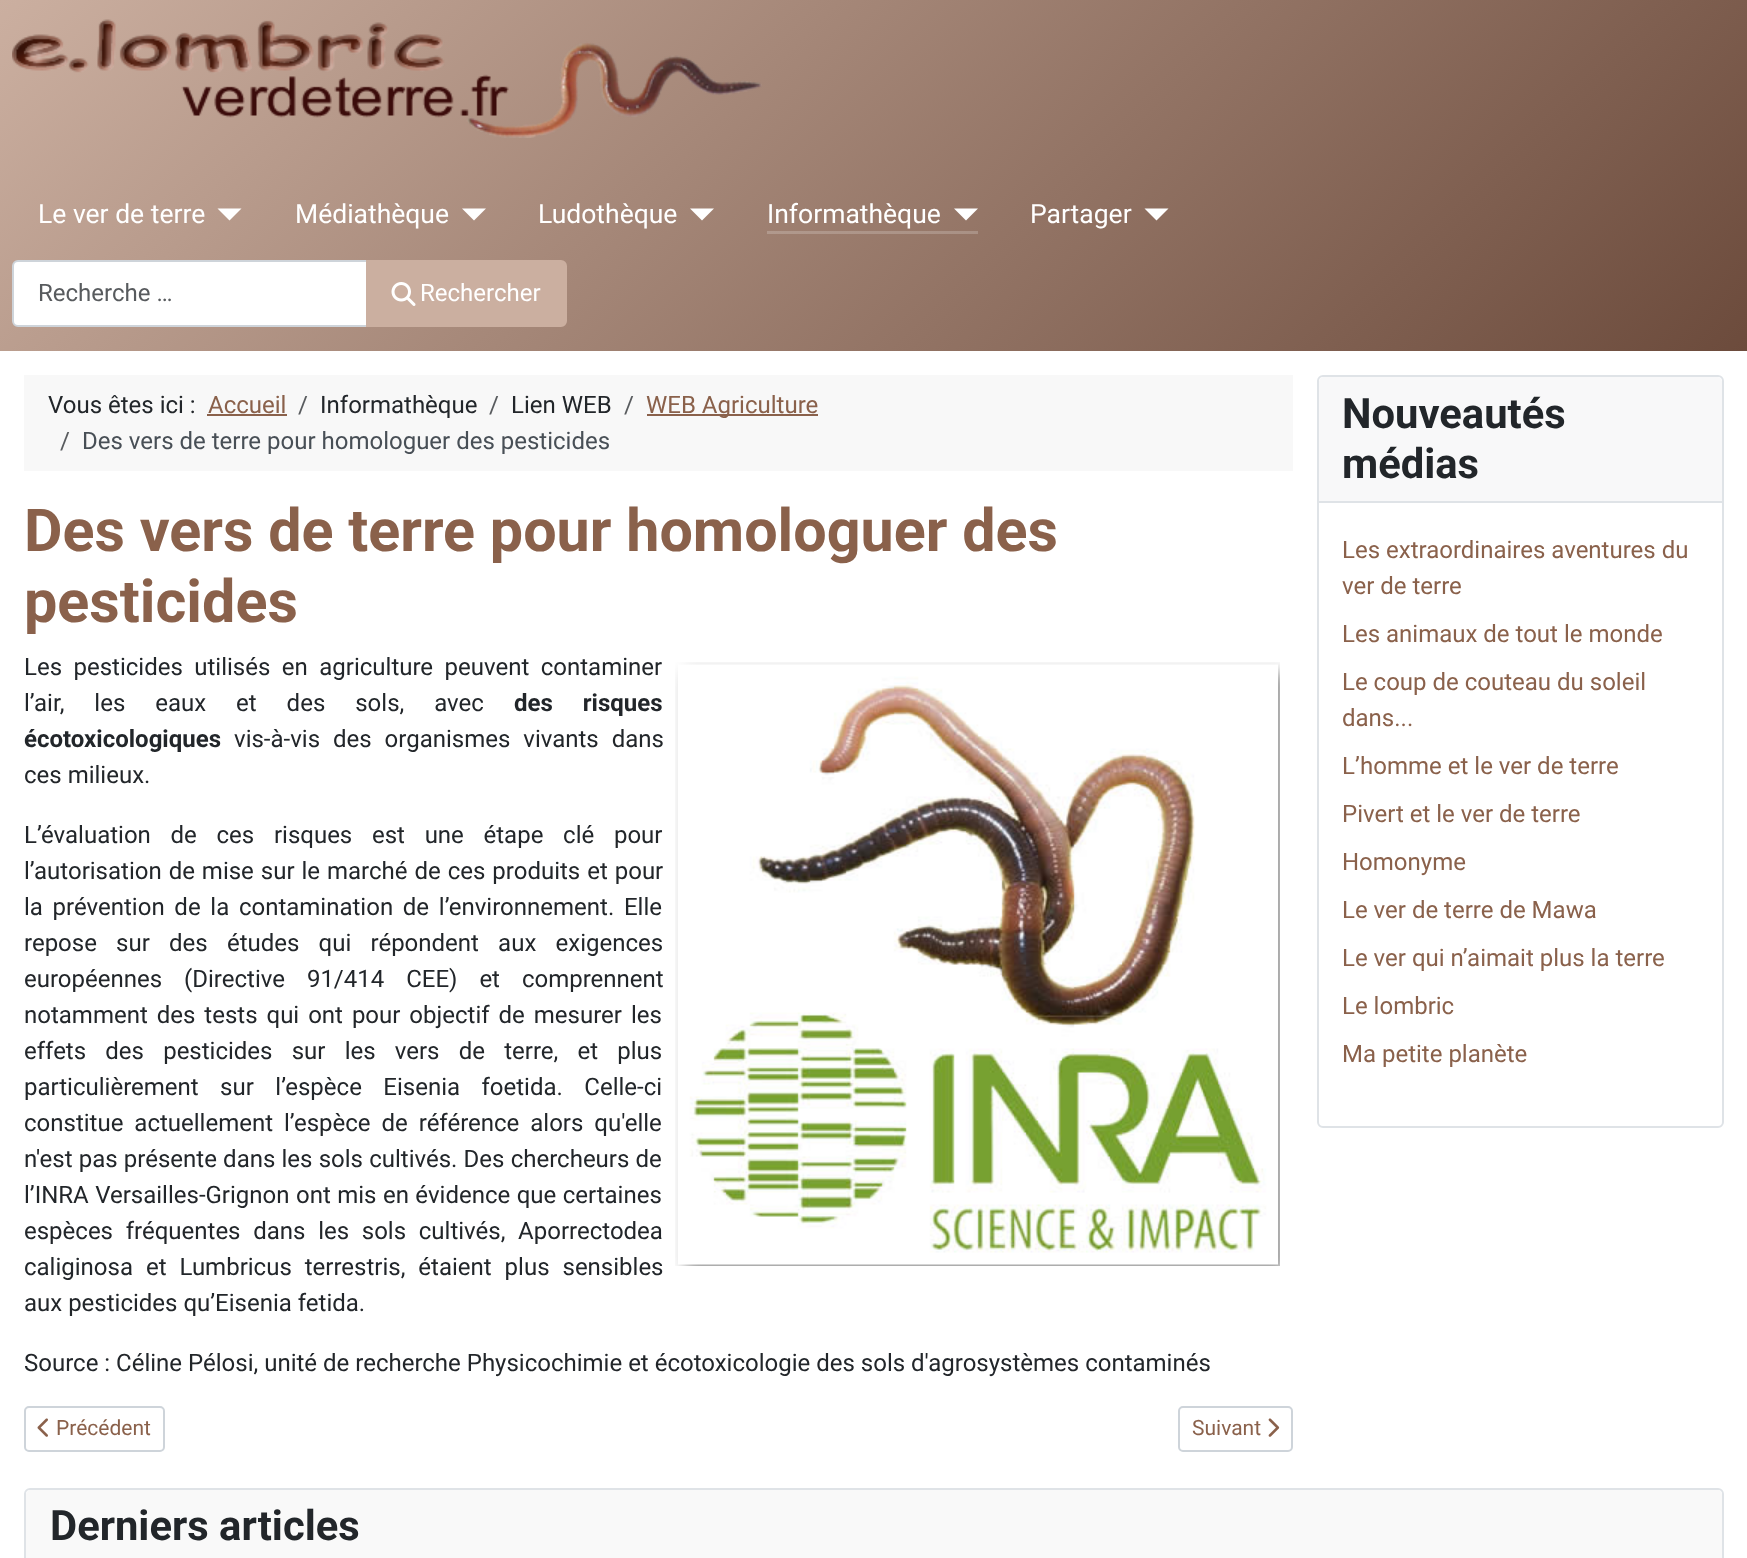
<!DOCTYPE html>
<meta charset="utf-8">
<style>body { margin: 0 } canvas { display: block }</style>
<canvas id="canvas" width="1747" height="1558"></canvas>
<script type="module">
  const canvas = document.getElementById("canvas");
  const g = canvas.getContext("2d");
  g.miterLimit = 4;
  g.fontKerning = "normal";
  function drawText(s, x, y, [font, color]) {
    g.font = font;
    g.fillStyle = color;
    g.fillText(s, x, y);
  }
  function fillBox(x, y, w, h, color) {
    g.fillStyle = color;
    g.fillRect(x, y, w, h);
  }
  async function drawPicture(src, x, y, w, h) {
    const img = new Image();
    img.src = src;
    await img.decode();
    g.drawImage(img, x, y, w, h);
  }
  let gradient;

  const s1 = ["26.5px Roboto", "#FFFFFF"];
  const s2 = ["24px Roboto", "#585B5E"];
  const s3 = ["24px Roboto", "#FFFFFF"];
  const s4 = ["24px Roboto", "#22262A"];
  const s5 = ["24px Roboto", "#8A614B"];
  const s6 = ["24px Roboto", "#484F56"];
  const s7 = ["bold 59.25px Roboto", "#8A614B"];
  const s8 = ["bold 24px Roboto", "#22262A"];
  const s9 = ["21px Roboto", "#8A614B"];
  const s10 = ["bold 41.75px Roboto", "#22262A"];

  fillBox(0, 0, 1747, 1558, "#FFFFFF");
  gradient = g.createLinearGradient(349, -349, 1398, 700);
  gradient.addColorStop(0, "#CBAFA0");
  gradient.addColorStop(1, "#6C4B3C");
  g.fillStyle = gradient;
  g.fillRect(0, 0, 1747, 351);
  gradient = g.createLinearGradient(349, -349, 1398, 700);
  gradient.addColorStop(0, "#D5BFB3");
  gradient.addColorStop(1, "#896F63");
  g.fillStyle = gradient;
  g.fillRect(767, 231, 211, 3);
  await drawPicture("pic1.png", 12, 19, 750, 119);
  drawText("Le ver de terre", 38, 223, s1);
  g.beginPath();
  g.moveTo(217.5, 208.5);
  g.lineTo(241.5, 208.5);
  g.lineTo(229.5, 220.5);
  g.closePath();
  g.fill();
  drawText("Médiathèque", 295, 223, s1);
  g.beginPath();
  g.moveTo(462, 208.5);
  g.lineTo(486, 208.5);
  g.lineTo(474, 220.5);
  g.closePath();
  g.fill();
  drawText("Ludothèque", 538, 223, s1);
  g.beginPath();
  g.moveTo(690, 208.5);
  g.lineTo(714, 208.5);
  g.lineTo(702, 220.5);
  g.closePath();
  g.fill();
  drawText("Informathèque", 767, 223, s1);
  g.beginPath();
  g.moveTo(954, 208.5);
  g.lineTo(978, 208.5);
  g.lineTo(966, 220.5);
  g.closePath();
  g.fill();
  drawText("Partager", 1030, 223, s1);
  g.beginPath();
  g.moveTo(1144.5, 208.5);
  g.lineTo(1168.5, 208.5);
  g.lineTo(1156.5, 220.5);
  g.closePath();
  g.fill();
  g.beginPath();
  g.roundRect(13, 261, 354, 65, [5, 0, 0, 5]);
  g.fill();
  g.strokeStyle = "#CED4DA";
  g.lineWidth = 2;
  g.stroke();
  drawText("Recherche …", 38, 301, s2);
  g.fillStyle = "#CBAFA0";
  g.beginPath();
  g.roundRect(367, 261, 199, 65, [0, 5, 5, 0]);
  g.fill();
  g.strokeStyle = "#CBAFA0";
  g.stroke();
  await drawPicture("pic2.png", 391, 282, 25, 24);
  drawText("Rechercher", 420, 301, s3);
  fillBox(24, 375, 1269, 96, "#F8F8F8");
  drawText("Vous êtes ici :", 48, 413, s4);
  drawText("Accueil", 208, 413, s5);
  fillBox(207, 414, 80, 2, "#8A614B");
  drawText("/", 298, 413, s2);
  drawText("Informathèque", 320, 413, s4);
  drawText("/", 489, 413, s2);
  drawText("Lien WEB", 511, 413, s4);
  drawText("/", 624, 413, s2);
  fillBox(647, 414, 171, 2, "#8A614B");
  drawText("WEB Agriculture", 646, 413, s5);
  drawText("/", 60, 449, s2);
  drawText("Des vers de terre pour homologuer des pesticides", 82, 449, s6);
  drawText("Des vers de terre pour homologuer des", 24, 551, s7);
  drawText("pesticides", 24, 622, s7);
  g.wordSpacing = "5.5px";
  drawText("Les pesticides utilisés en agriculture peuvent contaminer", 24, 675, s4);
  g.wordSpacing = "24px";
  drawText("l’air, les eaux et des sols, avec", 24, 711, s4);
  drawText("des risques", 514, 711, s8);
  g.wordSpacing = "0px";
  drawText("écotoxicologiques", 24, 747, s8);
  g.wordSpacing = "7px";
  drawText("vis-à-vis des organismes vivants dans", 234, 747, s4);
  g.wordSpacing = "0px";
  drawText("ces milieux.", 24, 783, s4);
  g.wordSpacing = "13.75px";
  drawText("L’évaluation de ces risques est une étape clé pour", 24, 843, s4);
  g.wordSpacing = "1px";
  drawText("l’autorisation de mise sur le marché de ces produits et pour", 24, 879, s4);
  g.wordSpacing = "3.75px";
  drawText("la prévention de la contamination de l’environnement. Elle", 24, 915, s4);
  g.wordSpacing = "13.25px";
  drawText("repose sur des études qui répondent aux exigences", 24, 951, s4);
  g.wordSpacing = "16px";
  drawText("européennes (Directive 91/414 CEE) et comprennent", 24, 987, s4);
  g.wordSpacing = "3px";
  drawText("notamment des tests qui ont pour objectif de mesurer les", 24, 1023, s4);
  g.wordSpacing = "13.25px";
  drawText("effets des pesticides sur les vers de terre, et plus", 24, 1059, s4);
  g.wordSpacing = "15.5px";
  drawText("particulièrement sur l’espèce Eisenia foetida. Celle-ci", 24, 1095, s4);
  g.wordSpacing = "5px";
  drawText("constitue actuellement l’espèce de référence alors qu'elle", 24, 1131, s4);
  g.wordSpacing = "0.25px";
  drawText("n'est pas présente dans les sols cultivés. Des chercheurs de", 24, 1167, s4);
  g.wordSpacing = "0.5px";
  drawText("l’INRA Versailles-Grignon ont mis en évidence que certaines", 24, 1203, s4);
  g.wordSpacing = "6.75px";
  drawText("espèces fréquentes dans les sols cultivés, Aporrectodea", 24, 1239, s4);
  g.wordSpacing = "7px";
  drawText("caliginosa et Lumbricus terrestris, étaient plus sensibles", 24, 1275, s4);
  g.wordSpacing = "0px";
  drawText("aux pesticides qu’Eisenia fetida.", 24, 1311, s4);
  drawText("Source : Céline Pélosi, unité de recherche Physicochimie et écotoxicologie des sols d'agrosystèmes contaminés", 24, 1371, s4);
  await drawPicture("pic3.png", 675, 662, 605, 604);
  g.beginPath();
  g.roundRect(25, 1407, 139, 44, 4);
  g.strokeStyle = "#CED4DA";
  g.stroke();
  await drawPicture("pic4.png", 37, 1418, 11, 19);
  drawText("Précédent", 56, 1435, s9);
  g.beginPath();
  g.roundRect(1179, 1407, 113, 44, 4);
  g.stroke();
  drawText("Suivant", 1192, 1435, s9);
  await drawPicture("pic5.png", 1268, 1418, 12, 19);
  g.beginPath();
  g.roundRect(1318, 376, 405, 751, 5);
  g.strokeStyle = "#DFE3E7";
  g.stroke();
  g.fillStyle = "#F8F8F9";
  g.beginPath();
  g.roundRect(1319, 377, 403, 126, [5, 5, 0, 0]);
  g.fill();
  fillBox(1319, 501, 403, 2, "#DFE3E7");
  drawText("Nouveautés", 1342, 428, s10);
  drawText("médias", 1342, 478, s10);
  drawText("Les extraordinaires aventures du", 1342, 558, s5);
  drawText("ver de terre", 1342, 594, s5);
  drawText("Les animaux de tout le monde", 1342, 642, s5);
  drawText("Le coup de couteau du soleil", 1342, 690, s5);
  drawText("dans...", 1342, 726, s5);
  drawText("L’homme et le ver de terre", 1342, 774, s5);
  drawText("Pivert et le ver de terre", 1342, 822, s5);
  drawText("Homonyme", 1342, 870, s5);
  drawText("Le ver de terre de Mawa", 1342, 918, s5);
  drawText("Le ver qui n’aimait plus la terre", 1342, 966, s5);
  drawText("Le lombric", 1342, 1014, s5);
  drawText("Ma petite planète", 1342, 1062, s5);
  g.beginPath();
  g.roundRect(25, 1489, 1698, 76, 5);
  g.stroke();
  g.fillStyle = "#F9F9F9";
  g.beginPath();
  g.moveTo(31, 1490);
  g.lineTo(1717, 1490);
  g.bezierCurveTo(1720, 1490, 1722, 1492, 1722, 1495);
  g.lineTo(1722, 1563);
  g.lineTo(26, 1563);
  g.lineTo(26, 1495);
  g.bezierCurveTo(26, 1492, 28, 1490, 31, 1490);
  g.closePath();
  g.fill();
  drawText("Derniers articles", 50, 1540, s10);
</script>
